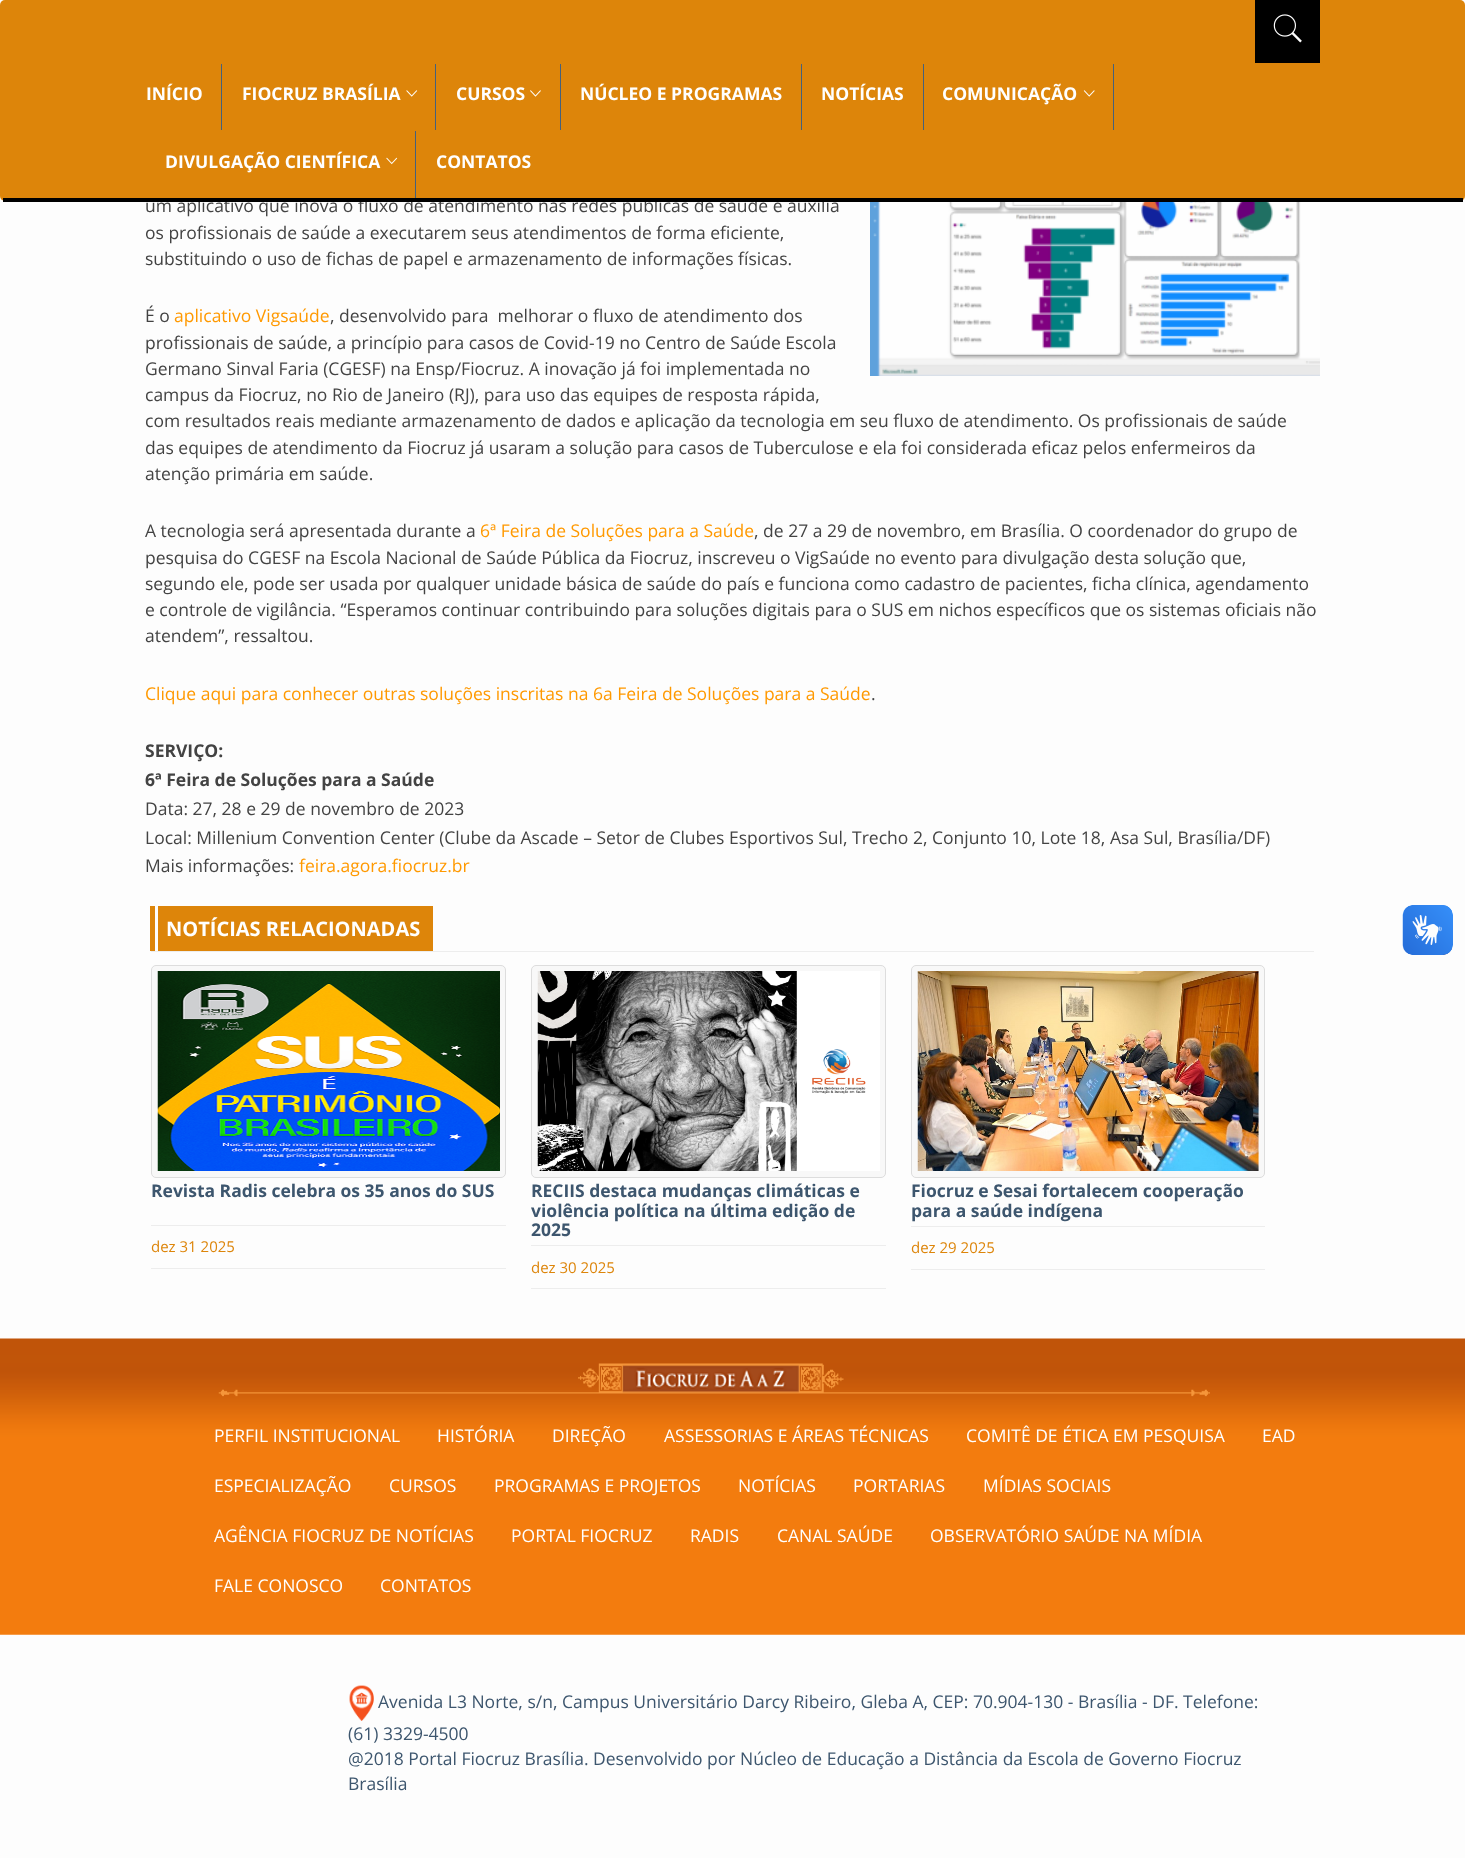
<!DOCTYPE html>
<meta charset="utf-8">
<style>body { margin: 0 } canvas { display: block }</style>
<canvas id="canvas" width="1465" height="1858"></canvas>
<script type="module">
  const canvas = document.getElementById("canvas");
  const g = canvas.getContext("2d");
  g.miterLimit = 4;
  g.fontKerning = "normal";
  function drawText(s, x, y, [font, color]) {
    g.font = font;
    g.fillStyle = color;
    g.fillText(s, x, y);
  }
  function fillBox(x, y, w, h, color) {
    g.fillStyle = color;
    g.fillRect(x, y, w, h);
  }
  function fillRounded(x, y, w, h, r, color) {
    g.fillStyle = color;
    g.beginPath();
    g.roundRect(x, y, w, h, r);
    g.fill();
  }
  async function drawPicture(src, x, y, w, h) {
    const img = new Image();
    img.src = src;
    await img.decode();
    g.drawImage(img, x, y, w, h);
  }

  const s1 = ["17.5px Open Sans", "#434343"];
  const s2 = ["bold 17.5px Open Sans", "#FFFFFF"];
  const s3 = ["17.5px Open Sans", "#FF9900"];
  const s4 = ["bold 17.5px Open Sans", "#434343"];
  const s5 = ["bold 20px Open Sans", "#FFFFFF"];
  const s6 = ["bold 17.5px Open Sans", "#3D566E"];
  const s7 = ["15px Open Sans", "#DD850A"];
  const s8 = ["17.5px Open Sans", "#FFFFFF"];
  const s9 = ["17.5px Open Sans", "#3D566E"];

  fillBox(0, 0, 1465, 1858, "#FDFDFD");
  drawText("um aplicativo que inova o fluxo de atendimento nas redes públicas de saúde e auxilia", 145, 212, s1);
  fillRounded(0, 0, 1465, 201, 5, "#DD850A");
  fillBox(3, 198, 1460, 4, "#000000");
  fillBox(1255, 0, 65, 63, "#000000");
  await drawPicture("pic1.png", 1273, 14, 29, 29);
  fillBox(221, 64, 1, 66, "#44617D");
  drawText("INÍCIO", 146, 100, s2);
  fillBox(435, 64, 1, 66, "#44617D");
  drawText("FIOCRUZ BRASÍLIA", 242, 100, s2);
  await drawPicture("pic2.png", 406, 90, 12, 7);
  fillBox(560, 64, 1, 66, "#44617D");
  drawText("CURSOS", 456, 100, s2);
  await drawPicture("pic3.png", 530, 90, 11, 7);
  fillBox(801, 64, 1, 66, "#44617D");
  drawText("NÚCLEO E PROGRAMAS", 580, 100, s2);
  fillBox(923, 64, 1, 66, "#44617D");
  drawText("NOTÍCIAS", 821, 100, s2);
  fillBox(1113, 64, 1, 66, "#44617D");
  drawText("COMUNICAÇÃO", 942, 100, s2);
  await drawPicture("pic4.png", 1083, 90, 12, 7);
  fillBox(415, 131, 1, 67, "#44617D");
  drawText("DIVULGAÇÃO CIENTÍFICA", 165, 168, s2);
  await drawPicture("pic5.png", 386, 157, 12, 8);
  drawText("CONTATOS", 436, 168, s2);
  await drawPicture("pic6.png", 870, 202, 450, 174);
  drawText("os profissionais de saúde a executarem seus atendimentos de forma eficiente,", 145, 239, s1);
  drawText("substituindo o uso de fichas de papel e armazenamento de informações físicas.", 145, 265, s1);
  drawText("É o", 145, 322, s1);
  drawText("aplicativo Vigsaúde", 174, 322, s3);
  drawText(", desenvolvido para  melhorar o fluxo de atendimento dos", 330, 322, s1);
  drawText("profissionais de saúde, a princípio para casos de Covid-19 no Centro de Saúde Escola", 145, 349, s1);
  drawText("Germano Sinval Faria (CGESF) na Ensp/Fiocruz. A inovação já foi implementada no", 145, 375, s1);
  drawText("campus da Fiocruz, no Rio de Janeiro (RJ), para uso das equipes de resposta rápida,", 145, 401, s1);
  drawText("com resultados reais mediante armazenamento de dados e aplicação da tecnologia em seu fluxo de atendimento. Os profissionais de saúde", 145, 427, s1);
  drawText("das equipes de atendimento da Fiocruz já usaram a solução para casos de Tuberculose e ela foi considerada eficaz pelos enfermeiros da", 145, 454, s1);
  drawText("atenção primária em saúde.", 145, 480, s1);
  drawText("A tecnologia será apresentada durante a", 145, 537, s1);
  drawText("6ª Feira de Soluções para a Saúde", 480, 537, s3);
  drawText(", de 27 a 29 de novembro, em Brasília. O coordenador do grupo de", 754, 537, s1);
  drawText("pesquisa do CGESF na Escola Nacional de Saúde Pública da Fiocruz, inscreveu o VigSaúde no evento para divulgação desta solução que,", 145, 564, s1);
  drawText("segundo ele, pode ser usada por qualquer unidade básica de saúde do país e funciona como cadastro de pacientes, ficha clínica, agendamento", 145, 590, s1);
  drawText("e controle de vigilância. “Esperamos continuar contribuindo para soluções digitais para o SUS em nichos específicos que os sistemas oficiais não", 145, 616, s1);
  drawText("atendem”, ressaltou.", 145, 642, s1);
  drawText("Clique aqui para conhecer outras soluções inscritas na 6a Feira de Soluções para a Saúde", 145, 700, s3);
  drawText(".", 871, 700, s1);
  drawText("SERVIÇO:", 145, 757, s4);
  drawText("6ª Feira de Soluções para a Saúde", 145, 786, s4);
  drawText("Data: 27, 28 e 29 de novembro de 2023", 145, 815, s1);
  drawText("Local: Millenium Convention Center (Clube da Ascade – Setor de Clubes Esportivos Sul, Trecho 2, Conjunto 10, Lote 18, Asa Sul, Brasília/DF)", 145, 844, s1);
  drawText("Mais informações:", 145, 872, s1);
  drawText("feira.agora.fiocruz.br", 299, 872, s3);
  fillBox(151, 951, 1163, 1, "#EDEDED");
  fillBox(158, 906, 275, 45, "#DD850A");
  fillBox(150, 906, 5, 45, "#DD850A");
  drawText("NOTÍCIAS RELACIONADAS", 166, 936, s5);
  g.fillStyle = "#F8F8F8";
  g.beginPath();
  g.roundRect(151.5, 965.5, 354, 212, 4.5);
  g.fill();
  g.strokeStyle = "#DDDDDD";
  g.stroke();
  await drawPicture("pic7.png", 157, 971, 343, 200);
  drawText("Revista Radis celebra os 35 anos do SUS", 151, 1197, s6);
  fillBox(151, 1225, 355, 1, "#EDEDED");
  fillBox(151, 1268, 355, 1, "#EDEDED");
  drawText("dez 31 2025", 151, 1252, s7);
  g.fillStyle = "#F8F8F8";
  g.beginPath();
  g.roundRect(531.5, 965.5, 354, 212, 4.5);
  g.fill();
  g.stroke();
  await drawPicture("pic8.png", 537, 971, 343, 200);
  drawText("RECIIS destaca mudanças climáticas e", 531, 1197, s6);
  drawText("violência política na última edição de", 531, 1217, s6);
  drawText("2025", 531, 1236, s6);
  fillBox(531, 1245, 355, 1, "#EDEDED");
  fillBox(531, 1288, 355, 1, "#EDEDED");
  drawText("dez 30 2025", 531, 1273, s7);
  g.fillStyle = "#F8F8F8";
  g.beginPath();
  g.roundRect(911.5, 965.5, 353, 212, 4.5);
  g.fill();
  g.stroke();
  await drawPicture("pic9.png", 917, 971, 342, 200);
  drawText("Fiocruz e Sesai fortalecem cooperação", 911, 1197, s6);
  drawText("para a saúde indígena", 911, 1217, s6);
  fillBox(911, 1226, 354, 1, "#EDEDED");
  fillBox(911, 1269, 354, 1, "#EDEDED");
  drawText("dez 29 2025", 911, 1253, s7);
  await drawPicture("pic10.png", 1402, 905, 51, 50);
  await drawPicture("pic11.png", 1403, 905, 50, 50);
  await drawPicture("pic12.png", 0, 1338, 1465, 297);
  await drawPicture("pic13.png", 218, 1363, 992, 34);
  drawText("PERFIL INSTITUCIONAL", 214, 1442, s8);
  drawText("HISTÓRIA", 437, 1442, s8);
  drawText("DIREÇÃO", 552, 1442, s8);
  drawText("ASSESSORIAS E ÁREAS TÉCNICAS", 664, 1442, s8);
  drawText("COMITÊ DE ÉTICA EM PESQUISA", 966, 1442, s8);
  drawText("EAD", 1262, 1442, s8);
  drawText("ESPECIALIZAÇÃO", 214, 1492, s8);
  drawText("CURSOS", 389, 1492, s8);
  drawText("PROGRAMAS E PROJETOS", 494, 1492, s8);
  drawText("NOTÍCIAS", 738, 1492, s8);
  drawText("PORTARIAS", 853, 1492, s8);
  drawText("MÍDIAS SOCIAIS", 983, 1492, s8);
  drawText("AGÊNCIA FIOCRUZ DE NOTÍCIAS", 214, 1542, s8);
  drawText("PORTAL FIOCRUZ", 511, 1542, s8);
  drawText("RADIS", 690, 1542, s8);
  drawText("CANAL SAÚDE", 777, 1542, s8);
  drawText("OBSERVATÓRIO SAÚDE NA MÍDIA", 930, 1542, s8);
  drawText("FALE CONOSCO", 214, 1592, s8);
  drawText("CONTATOS", 380, 1592, s8);
  await drawPicture("pic14.png", 349, 1685, 25, 36);
  drawText("Avenida L3 Norte, s/n, Campus Universitário Darcy Ribeiro, Gleba A, CEP: 70.904-130 - Brasília - DF. Telefone:", 378, 1708, s9);
  drawText("(61) 3329-4500", 348, 1740, s9);
  drawText("@2018 Portal Fiocruz Brasília. Desenvolvido por Núcleo de Educação a Distância da Escola de Governo Fiocruz", 348, 1765, s9);
  drawText("Brasília", 348, 1790, s9);
</script>
